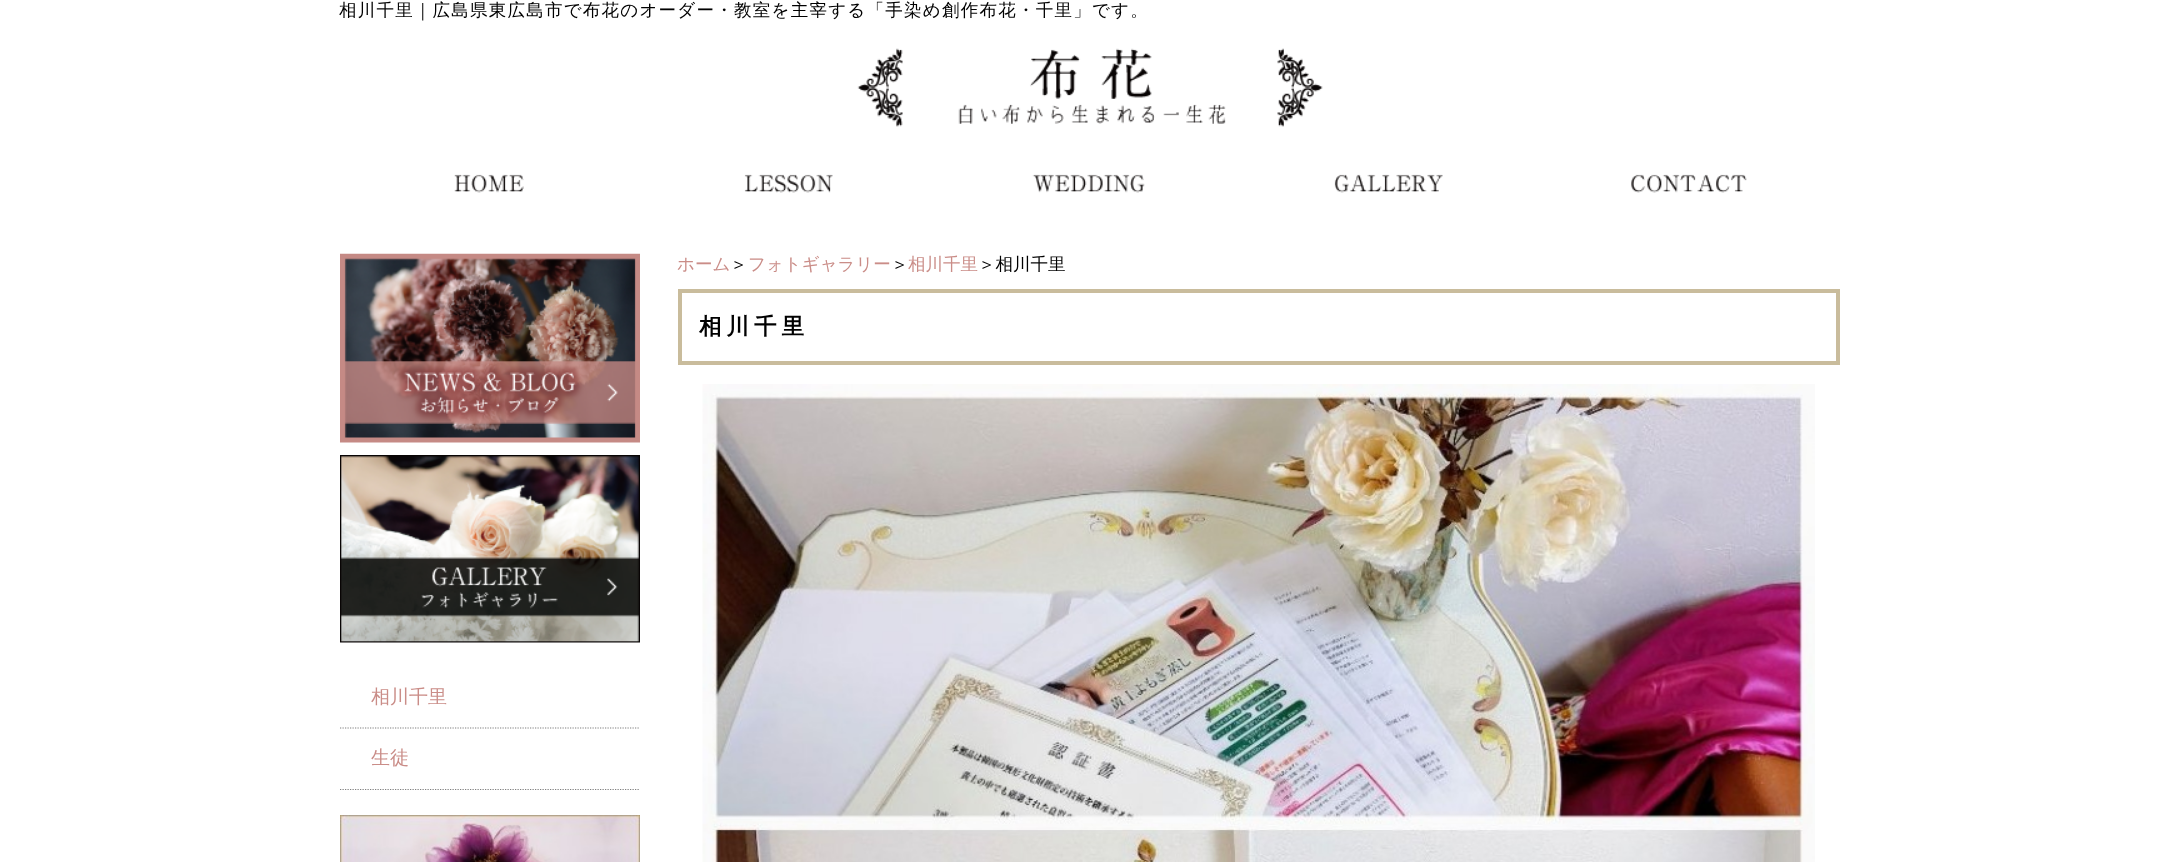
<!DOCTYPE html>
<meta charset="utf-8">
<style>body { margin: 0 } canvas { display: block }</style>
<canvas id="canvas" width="2178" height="862"></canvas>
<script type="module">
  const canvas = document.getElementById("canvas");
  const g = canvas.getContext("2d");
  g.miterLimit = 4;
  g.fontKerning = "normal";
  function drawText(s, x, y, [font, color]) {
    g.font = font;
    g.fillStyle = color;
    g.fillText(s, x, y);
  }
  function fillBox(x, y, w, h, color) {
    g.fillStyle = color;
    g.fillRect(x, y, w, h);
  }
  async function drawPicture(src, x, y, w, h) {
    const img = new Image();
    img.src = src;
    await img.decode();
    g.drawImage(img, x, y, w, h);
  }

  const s1 = ["500 17.5px WenQuanYi Zen Hei", "#000000"];
  const s2 = ["500 17.5px WenQuanYi Zen Hei", "#CA8D88"];
  const s3 = ["bold 22.5px WenQuanYi Zen Hei", "#000000"];
  const s4 = ["500 19px WenQuanYi Zen Hei", "#CA8D88"];

  fillBox(0, 0, 2178, 862, "#FFFFFF");
  g.letterSpacing = "1.25px";
  drawText("相川千里｜広島県東広島市で布花のオーダー・教室を主宰する「手染め創作布花・千里」です。", 339, 16, s1);
  await drawPicture("pic1.png", 857, 48, 466, 79);
  await drawPicture("pic2.png", 454, 174, 70, 19);
  await drawPicture("pic3.png", 744, 174, 89, 19);
  await drawPicture("pic4.png", 1032, 174, 113, 19);
  await drawPicture("pic5.png", 1334, 174, 109, 19);
  await drawPicture("pic6.png", 1631, 174, 116, 19);
  g.letterSpacing = "0px";
  drawText("ホーム", 677, 270, s2);
  drawText("＞", 730, 270, s1);
  drawText("フォトギャラリー", 748, 270, s2);
  drawText("＞", 891, 270, s1);
  drawText("相川千里", 908, 270, s2);
  drawText("＞相川千里", 978, 270, s1);
  g.strokeStyle = "#C9BC9C";
  g.lineWidth = 4;
  g.strokeRect(680, 291, 1158, 72);
  g.letterSpacing = "5px";
  drawText("相川千里", 699, 334, s3);
  await drawPicture("pic7.png", 702, 384, 1113, 478);
  await drawPicture("pic8.png", 340, 253, 300, 190);
  await drawPicture("pic9.png", 340, 455, 300, 188);
  g.beginPath();
  g.moveTo(340, 728);
  g.lineTo(640, 728);
  g.strokeStyle = "#7F7F7F";
  g.lineWidth = 1.2;
  g.setLineDash([1.25, 1.25]);
  g.stroke();
  g.letterSpacing = "0px";
  drawText("相川千里", 371, 703, s4);
  g.beginPath();
  g.moveTo(340, 789.5);
  g.lineTo(640, 789.5);
  g.stroke();
  drawText("生徒", 371, 764, s4);
  await drawPicture("pic10.png", 340, 815, 300, 47);
</script>
